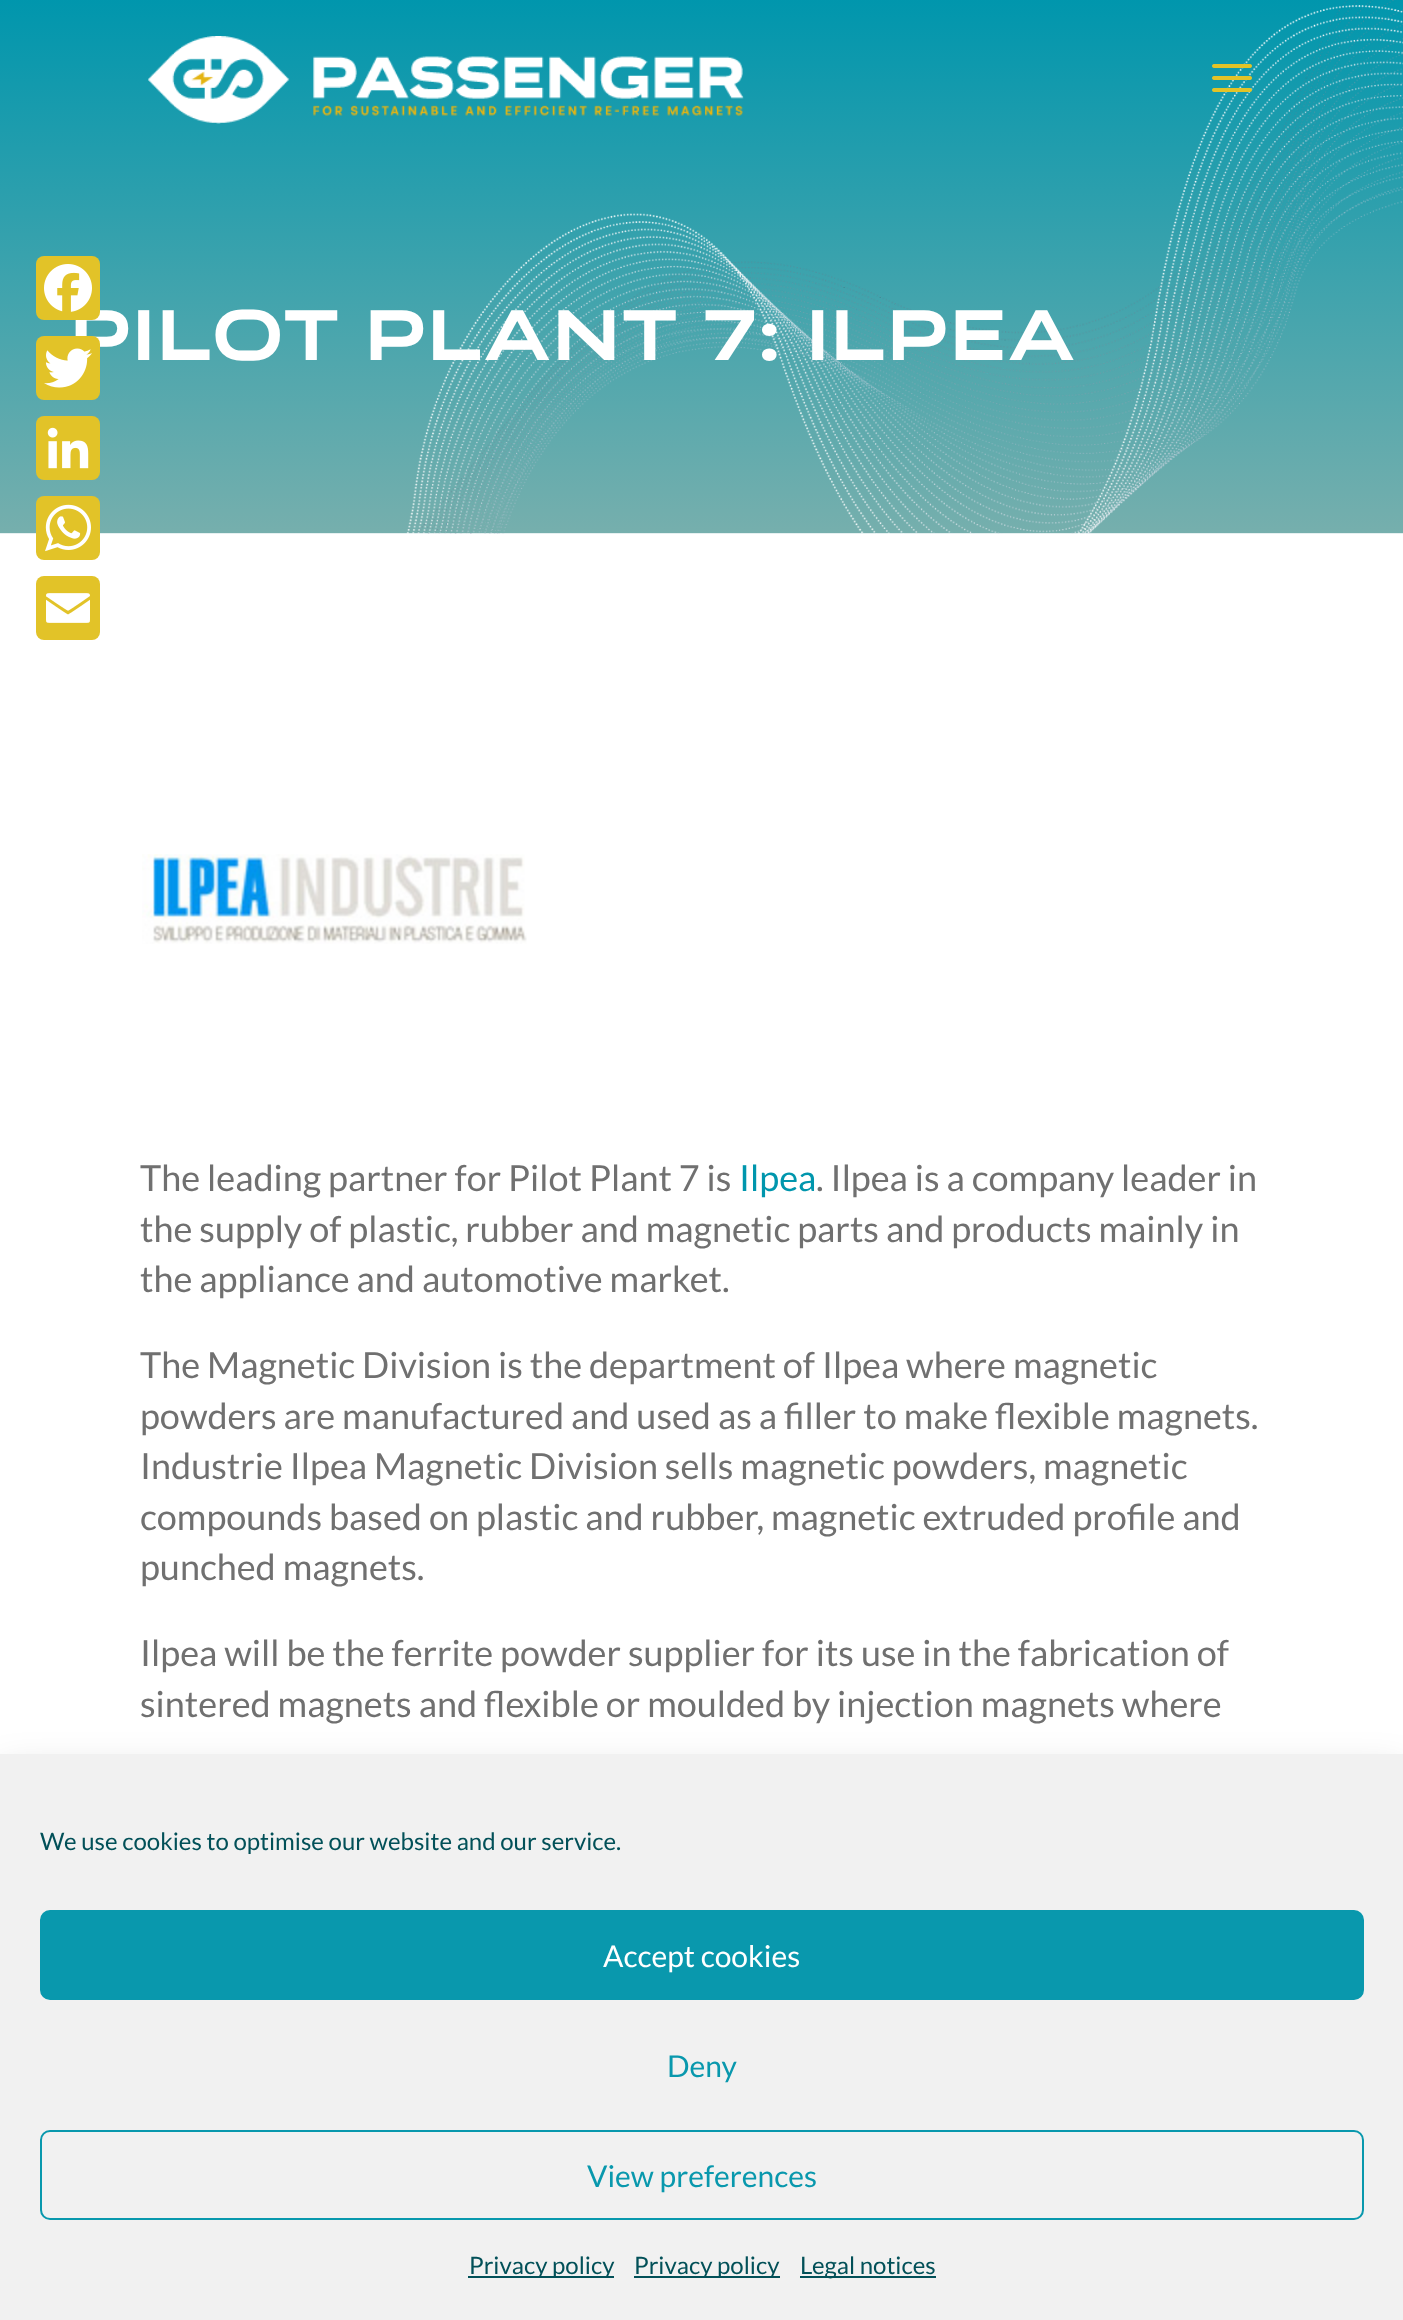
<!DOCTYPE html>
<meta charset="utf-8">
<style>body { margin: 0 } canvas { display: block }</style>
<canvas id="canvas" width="1403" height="2320"></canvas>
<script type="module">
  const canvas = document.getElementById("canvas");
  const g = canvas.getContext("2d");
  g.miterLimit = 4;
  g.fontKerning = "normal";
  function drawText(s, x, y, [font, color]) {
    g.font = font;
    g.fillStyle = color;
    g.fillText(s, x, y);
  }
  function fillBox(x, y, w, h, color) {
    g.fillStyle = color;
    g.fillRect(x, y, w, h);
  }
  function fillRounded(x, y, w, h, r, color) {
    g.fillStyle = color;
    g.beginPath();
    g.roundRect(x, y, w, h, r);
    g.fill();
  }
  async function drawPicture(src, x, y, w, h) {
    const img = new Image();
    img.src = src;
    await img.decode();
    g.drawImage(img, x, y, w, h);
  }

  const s1 = ["bold 72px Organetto", "#FFFFFF"];
  const s2 = ["36px Lato", "#707070"];
  const s3 = ["36px Lato", "#0096AD"];
  const s4 = ["24px Lato", "#025058"];
  const s5 = ["30px Lato", "#FFFFFF"];
  const s6 = ["30px Lato", "#0998AD"];

  fillBox(0, 0, 1403, 2320, "#FFFFFF");
  await drawPicture("pic8.png", 0, 0, 1403, 534);
  g.letterSpacing = "2px";
  drawText("Pilot plant 7: ILPEA", 70, 360, s1);
  fillRounded(36, 256, 64, 64, 8, "#E2C328");
  await drawPicture("pic1.png", 44, 264, 48, 48);
  fillRounded(36, 336, 64, 64, 8, "#E2C328");
  await drawPicture("pic2.png", 44, 348, 48, 40);
  fillRounded(36, 416, 64, 64, 8, "#E2C328");
  await drawPicture("pic3.png", 47, 427, 42, 42);
  fillRounded(36, 496, 64, 64, 8, "#E2C328");
  await drawPicture("pic4.png", 45, 504, 46, 48);
  fillRounded(36, 576, 64, 64, 8, "#E2C328");
  await drawPicture("pic5.png", 46, 593, 44, 30);
  await drawPicture("pic6.png", 148, 36, 596, 88);
  await drawPicture("pic7.png", 1212, 64, 40, 28);
  await drawPicture("pic9.png", 142, 854, 385, 90);
  g.letterSpacing = "0px";
  drawText("The leading partner for Pilot Plant 7 is", 140, 1191, s2);
  drawText("Ilpea", 739, 1191, s3);
  drawText(". Ilpea is a company leader in", 816, 1191, s2);
  drawText("the supply of plastic, rubber and magnetic parts and products mainly in", 140, 1242, s2);
  drawText("the appliance and automotive market.", 140, 1292, s2);
  drawText("The Magnetic Division is the department of Ilpea where magnetic", 140, 1378, s2);
  drawText("powders are manufactured and used as a filler to make flexible magnets.", 140, 1429, s2);
  drawText("Industrie Ilpea Magnetic Division sells magnetic powders, magnetic", 140, 1479, s2);
  drawText("compounds based on plastic and rubber, magnetic extruded profile and", 140, 1530, s2);
  drawText("punched magnets.", 140, 1580, s2);
  drawText("Ilpea will be the ferrite powder supplier for its use in the fabrication of", 140, 1666, s2);
  drawText("sintered magnets and flexible or moulded by injection magnets where", 140, 1717, s2);
  g.fillStyle = "rgba(0, 0, 0, 0.19)";
  g.filter = "blur(20px)";
  g.beginPath();
  g.rect(0, 1774, 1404, 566);
  g.fill();
  g.filter = "none";
  fillBox(0, 1754, 1403, 566, "#F1F1F1");
  drawText("We use cookies to optimise our website and our service.", 40, 1850, s4);
  g.fillStyle = "#0998AD";
  g.beginPath();
  g.roundRect(41, 1911, 1322, 88, 9);
  g.fill();
  g.strokeStyle = "#0998AD";
  g.lineWidth = 2;
  g.stroke();
  drawText("Accept cookies", 603, 1967, s5);
  drawText("Deny", 667, 2077, s6);
  g.beginPath();
  g.roundRect(41, 2131, 1322, 88, 9);
  g.stroke();
  drawText("View preferences", 587, 2187, s6);
  fillBox(468, 2276, 146, 2, "#025058");
  drawText("Privacy policy", 469, 2274, s4);
  fillBox(634, 2276, 146, 2, "#025058");
  drawText("Privacy policy", 634, 2274, s4);
  fillBox(800, 2276, 136, 2, "#025058");
  drawText("Legal notices", 800, 2274, s4);
</script>
